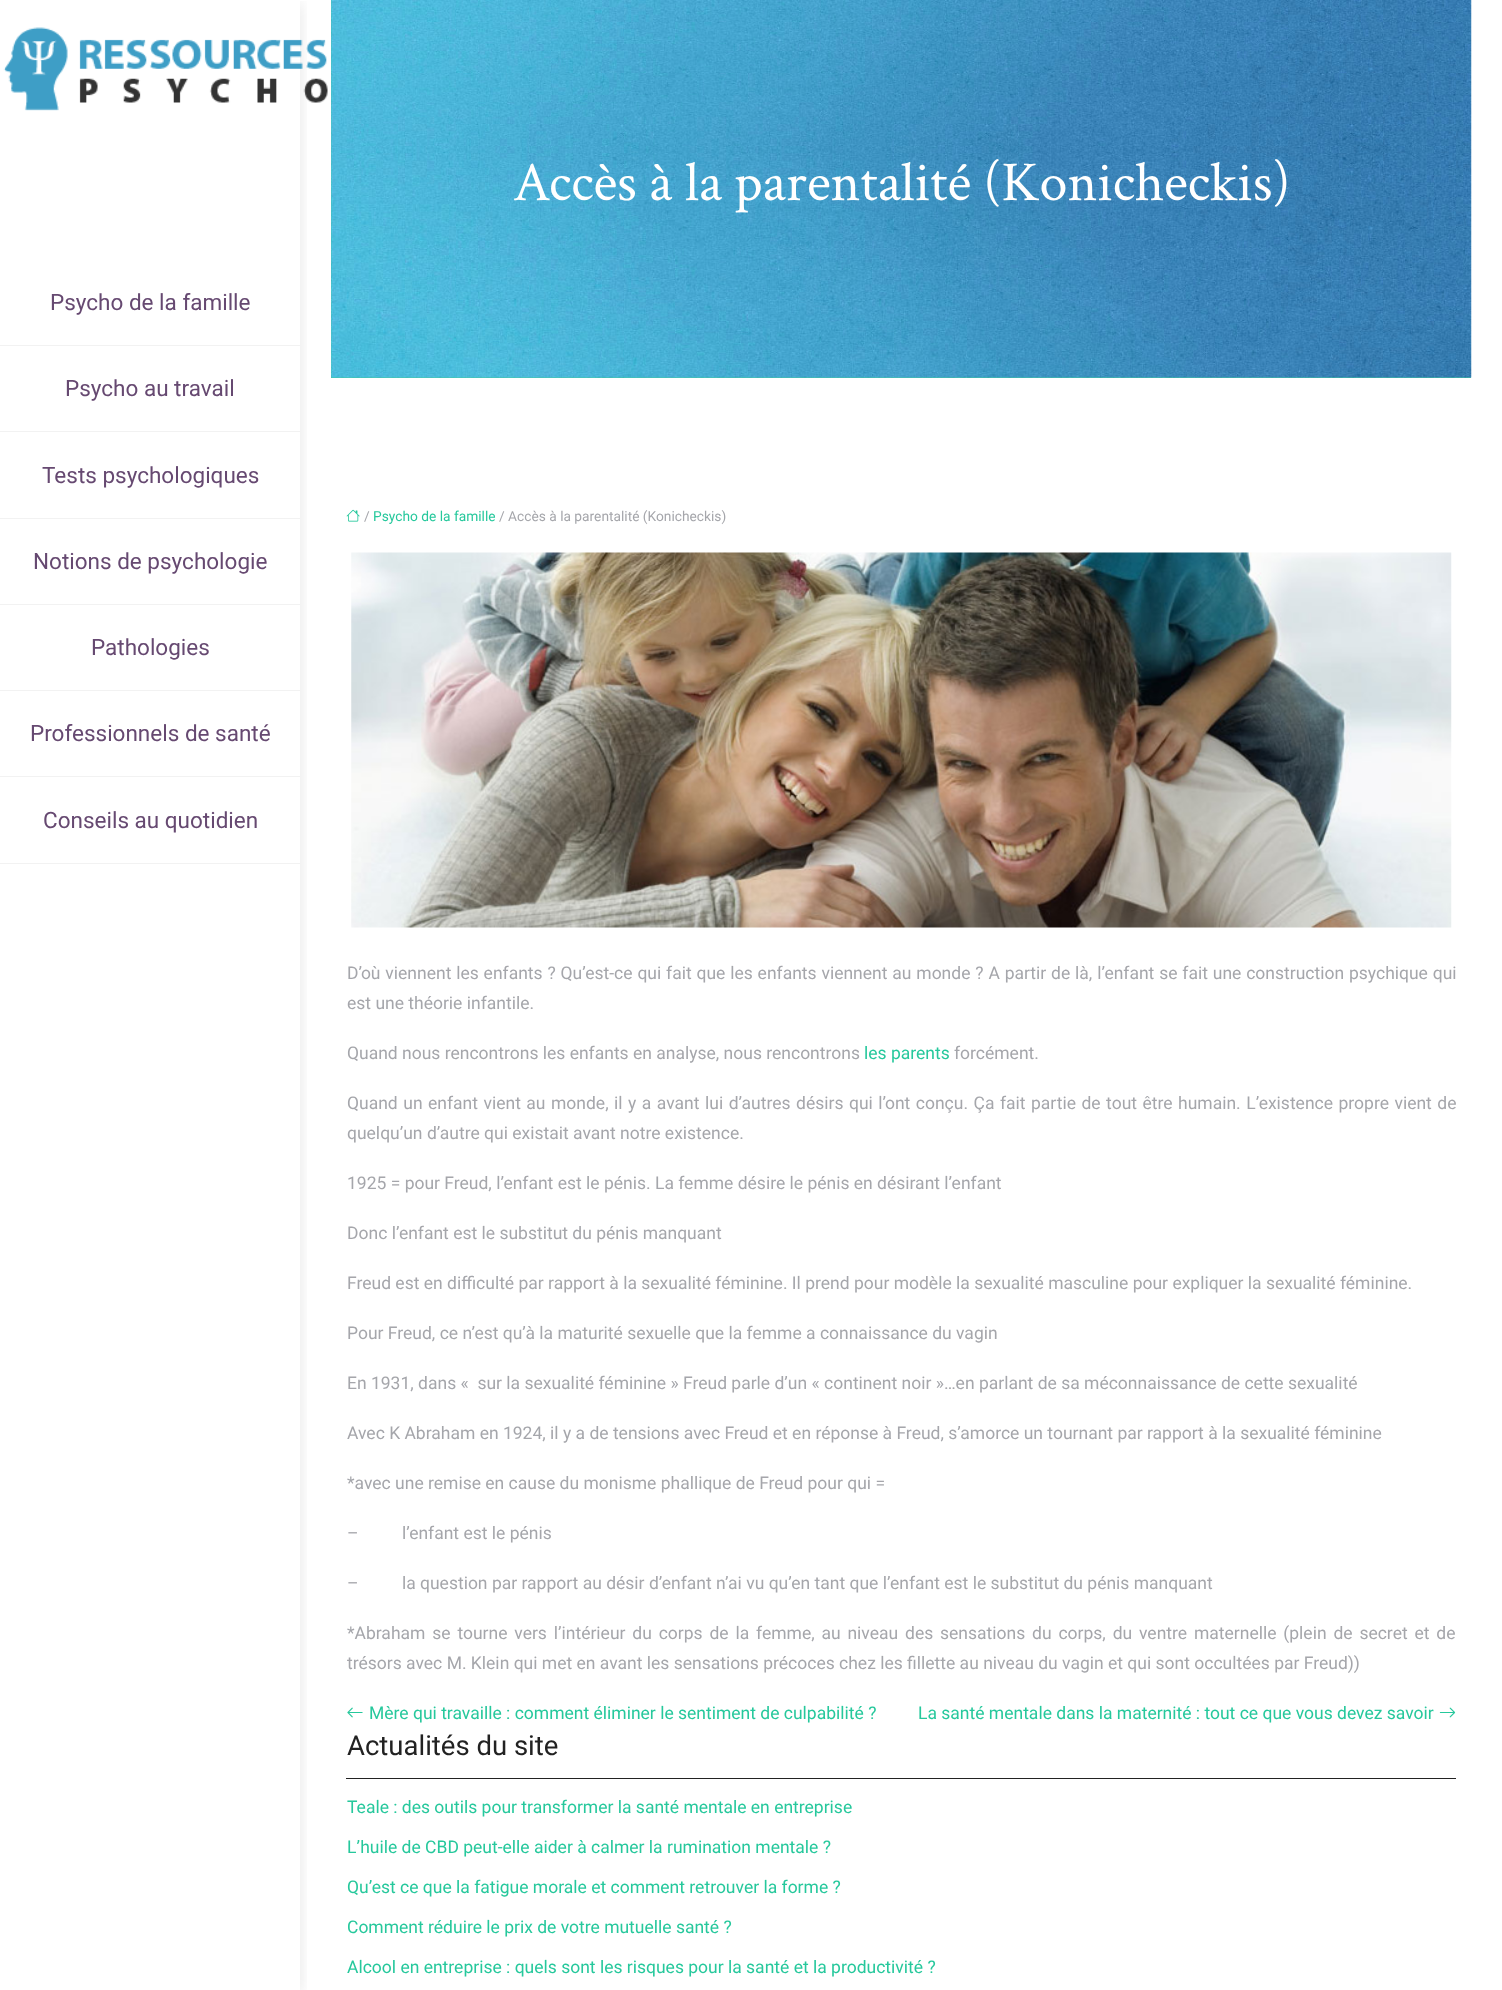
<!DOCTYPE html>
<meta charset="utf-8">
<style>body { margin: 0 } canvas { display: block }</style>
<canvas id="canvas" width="1502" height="1990"></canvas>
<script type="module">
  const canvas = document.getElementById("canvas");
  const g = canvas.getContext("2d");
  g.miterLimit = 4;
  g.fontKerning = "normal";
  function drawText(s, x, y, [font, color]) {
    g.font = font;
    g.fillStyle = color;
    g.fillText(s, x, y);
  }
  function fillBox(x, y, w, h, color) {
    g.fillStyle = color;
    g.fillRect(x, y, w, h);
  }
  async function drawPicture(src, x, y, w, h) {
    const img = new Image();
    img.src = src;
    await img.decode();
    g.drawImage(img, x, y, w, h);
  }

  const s1 = ["22.5px Roboto", "#664971"];
  const s2 = ["56.25px Crimson Text", "#FFFFFF"];
  const s3 = ["13.75px Roboto", "#A5A6AB"];
  const s4 = ["13.75px Roboto", "#26C89C"];
  const s5 = ["17.5px Roboto", "#A5A6AB"];
  const s6 = ["17.5px Roboto", "#26C89C"];
  const s7 = ["27.5px Roboto", "#222222"];

  fillBox(0, 0, 1502, 1990, "#FFFFFF");
  g.save();
  g.beginPath();
  g.rect(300, 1, 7, 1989);
  g.clip();
  g.fillStyle = "rgba(0, 0, 0, 0.1)";
  g.filter = "blur(8px)";
  g.beginPath();
  g.rect(0, 3, 300, 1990);
  g.fill();
  g.filter = "none";
  g.restore();
  await drawPicture("pic1.png", 3, 27, 325, 84);
  fillBox(0, 345, 300, 1, "#F2F2F2");
  drawText("Psycho de la famille", 50, 310, s1);
  fillBox(0, 431, 300, 1, "#F2F2F2");
  drawText("Psycho au travail", 65, 396, s1);
  fillBox(0, 518, 300, 1, "#F2F2F2");
  drawText("Tests psychologiques", 42, 483, s1);
  fillBox(0, 604, 300, 1, "#F2F2F2");
  drawText("Notions de psychologie", 33, 569, s1);
  fillBox(0, 690, 300, 1, "#F2F2F2");
  drawText("Pathologies", 91, 655, s1);
  fillBox(0, 776, 300, 1, "#F2F2F2");
  drawText("Professionnels de santé", 30, 741, s1);
  fillBox(0, 863, 300, 1, "#F2F2F2");
  drawText("Conseils au quotidien", 43, 828, s1);
  fillBox(331, 0, 1140, 378, "#40CAA1");
  await drawPicture("pic2.png", 331, 0, 1141, 378);
  drawText("Accès à la parentalité (Konicheckis)", 513, 200, s2);
  await drawPicture("pic3.png", 346, 509, 14, 13);
  drawText("/", 364, 521, s3);
  drawText("Psycho de la famille", 373, 521, s4);
  drawText("/ Accès à la parentalité (Konicheckis)", 499, 521, s3);
  await drawPicture("pic4.png", 351, 552, 1101, 376);
  g.wordSpacing = "0.5px";
  drawText("D’où viennent les enfants ? Qu’est-ce qui fait que les enfants viennent au monde ? A partir de là, l’enfant se fait une construction psychique qui", 347, 979, s5);
  g.wordSpacing = "0px";
  drawText("est une théorie infantile.", 347, 1009, s5);
  drawText("Quand nous rencontrons les enfants en analyse, nous rencontrons", 347, 1059, s5);
  drawText("les parents", 864, 1059, s6);
  drawText("forcément.", 954, 1059, s5);
  g.wordSpacing = "1.15px";
  drawText("Quand un enfant vient au monde, il y a avant lui d’autres désirs qui l’ont conçu. Ça fait partie de tout être humain. L’existence propre vient de", 347, 1109, s5);
  g.wordSpacing = "0px";
  drawText("quelqu’un d’autre qui existait avant notre existence.", 347, 1139, s5);
  drawText("1925 = pour Freud, l’enfant est le pénis. La femme désire le pénis en désirant l’enfant", 347, 1189, s5);
  drawText("Donc l’enfant est le substitut du pénis manquant", 347, 1239, s5);
  drawText("Freud est en difficulté par rapport à la sexualité féminine. Il prend pour modèle la sexualité masculine pour expliquer la sexualité féminine.", 347, 1289, s5);
  drawText("Pour Freud, ce n’est qu’à la maturité sexuelle que la femme a connaissance du vagin", 347, 1339, s5);
  drawText("En 1931, dans «  sur la sexualité féminine » Freud parle d’un « continent noir »…en parlant de sa méconnaissance de cette sexualité", 347, 1389, s5);
  drawText("Avec K Abraham en 1924, il y a de tensions avec Freud et en réponse à Freud, s’amorce un tournant par rapport à la sexualité féminine", 347, 1439, s5);
  drawText("*avec une remise en cause du monisme phallique de Freud pour qui =", 347, 1489, s5);
  drawText("–          l’enfant est le pénis", 347, 1539, s5);
  drawText("–          la question par rapport au désir d’enfant n’ai vu qu’en tant que l’enfant est le substitut du pénis manquant", 347, 1589, s5);
  g.wordSpacing = "2.5px";
  drawText("*Abraham se tourne vers l’intérieur du corps de la femme, au niveau des sensations du corps, du ventre maternelle (plein de secret et de", 347, 1639, s5);
  g.wordSpacing = "0px";
  drawText("trésors avec M. Klein qui met en avant les sensations précoces chez les fillette au niveau du vagin et qui sont occultées par Freud))", 347, 1669, s5);
  await drawPicture("pic5.png", 347, 1707, 16, 11);
  drawText("Mère qui travaille : comment éliminer le sentiment de culpabilité ?", 369, 1719, s6);
  drawText("La santé mentale dans la maternité : tout ce que vous devez savoir", 918, 1719, s6);
  await drawPicture("pic6.png", 1439, 1707, 17, 11);
  fillBox(346, 1778, 1110, 1, "#222222");
  drawText("Actualités du site", 347, 1755, s7);
  drawText("Teale : des outils pour transformer la santé mentale en entreprise", 347, 1813, s6);
  drawText("L’huile de CBD peut-elle aider à calmer la rumination mentale ?", 347, 1853, s6);
  drawText("Qu’est ce que la fatigue morale et comment retrouver la forme ?", 347, 1893, s6);
  drawText("Comment réduire le prix de votre mutuelle santé ?", 347, 1933, s6);
  drawText("Alcool en entreprise : quels sont les risques pour la santé et la productivité ?", 347, 1973, s6);
</script>
